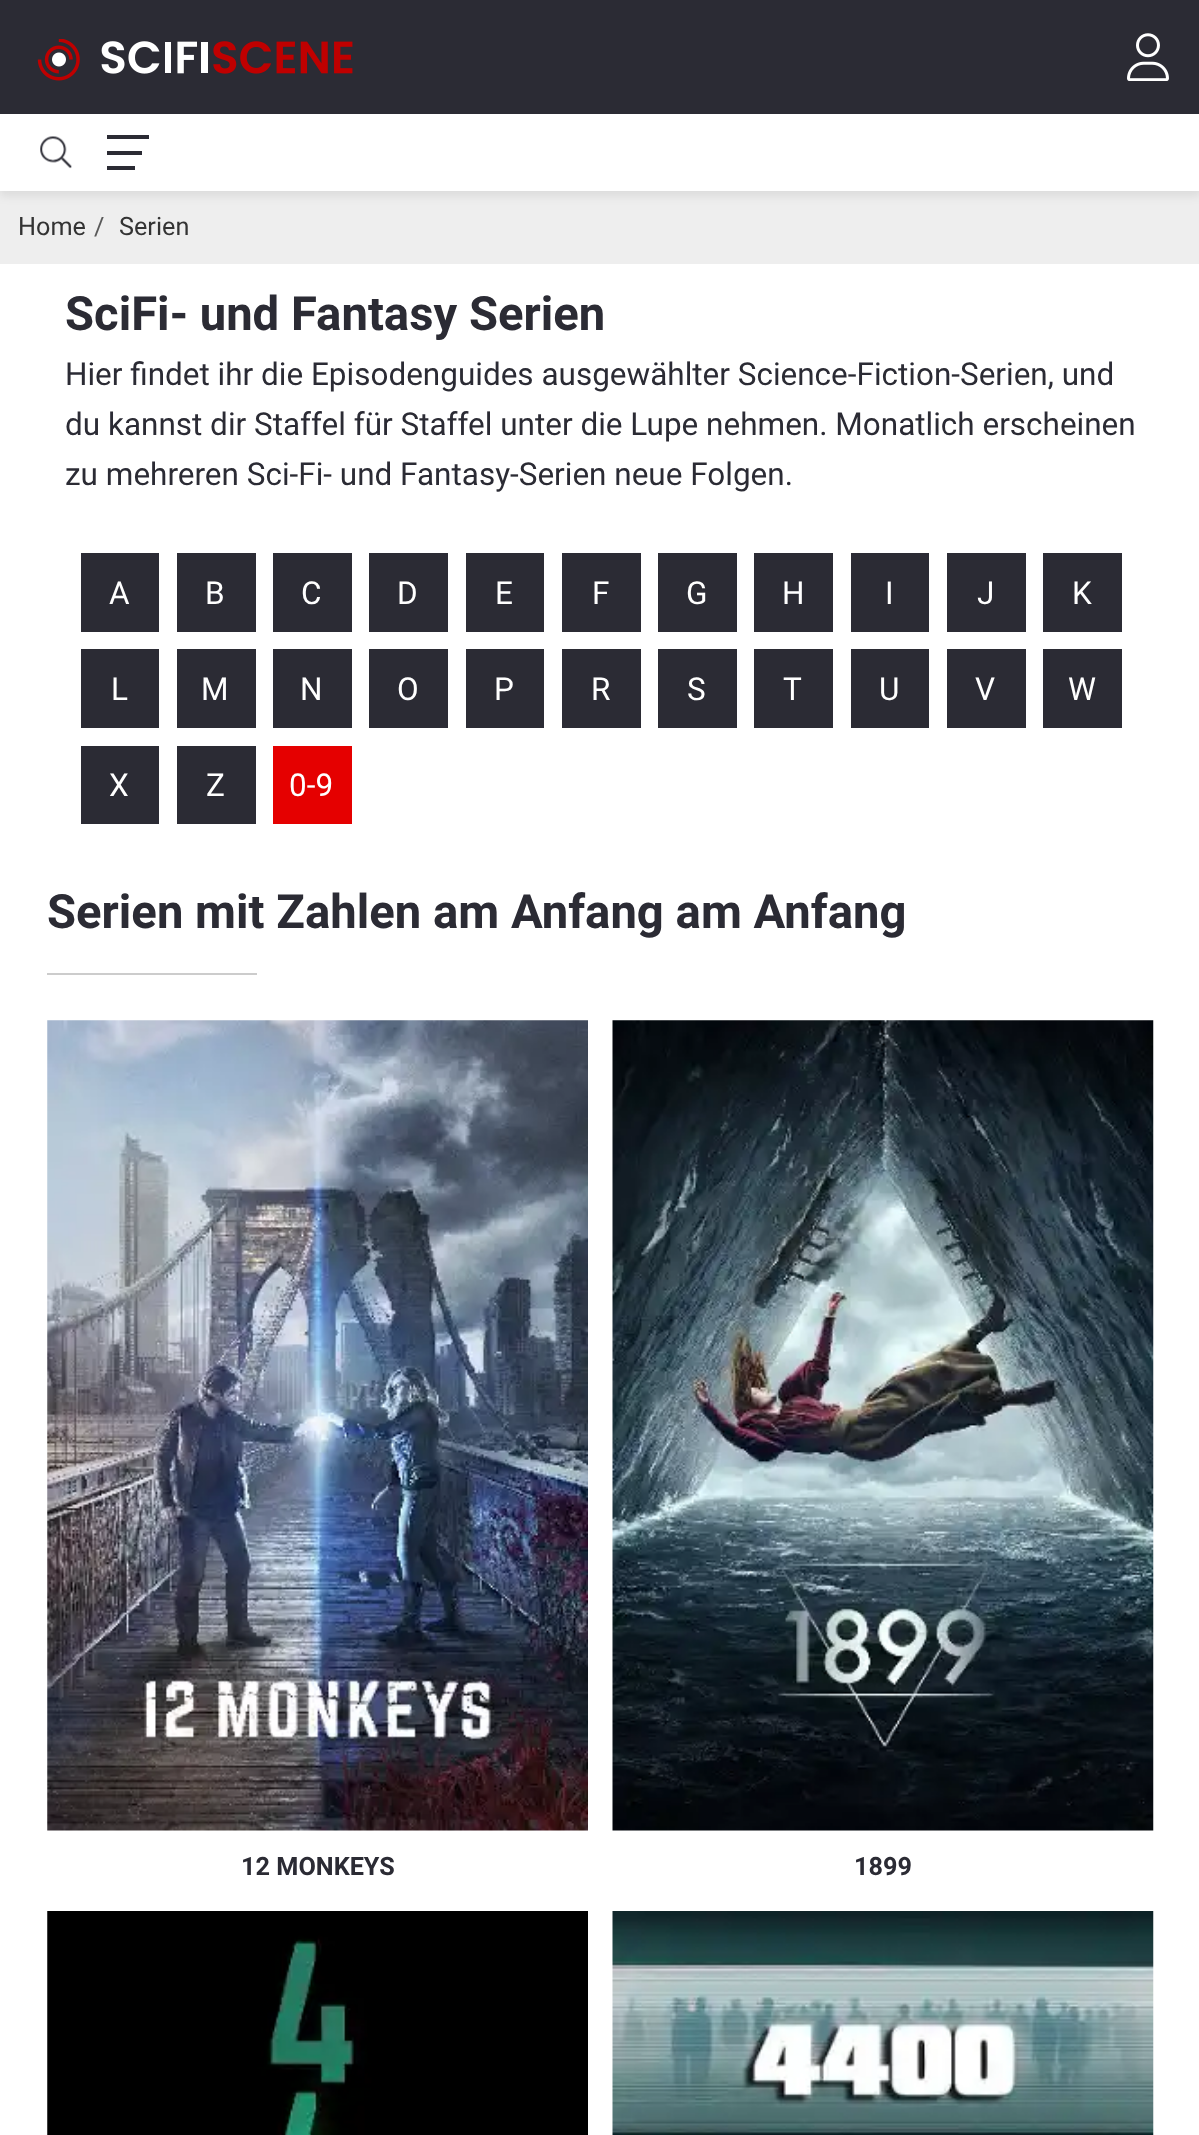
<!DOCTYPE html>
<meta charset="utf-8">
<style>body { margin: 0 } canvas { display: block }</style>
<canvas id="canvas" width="1199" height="2135"></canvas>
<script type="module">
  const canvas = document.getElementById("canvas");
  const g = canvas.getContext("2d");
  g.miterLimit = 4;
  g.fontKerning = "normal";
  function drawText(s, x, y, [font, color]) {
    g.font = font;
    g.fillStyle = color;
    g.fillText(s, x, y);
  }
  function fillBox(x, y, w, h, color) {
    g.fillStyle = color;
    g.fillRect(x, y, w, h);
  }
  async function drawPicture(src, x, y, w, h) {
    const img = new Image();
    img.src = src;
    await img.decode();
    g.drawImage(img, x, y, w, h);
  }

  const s1 = ["25.25px Roboto", "#333333"];
  const s2 = ["25.25px Roboto", "#595959"];
  const s3 = ["bold 47.25px Roboto", "#2B2B34"];
  const s4 = ["31.5px Roboto", "#2B2B34"];
  const s5 = ["31.5px Roboto", "#FFFFFF"];
  const s6 = ["bold 25.25px Roboto", "#2B2B34"];

  fillBox(0, 0, 1199, 2135, "#EEEEEE");
  g.fillStyle = "rgba(0, 0, 0, 0.08)";
  g.filter = "blur(5px)";
  g.beginPath();
  g.rect(0, 5, 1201, 191);
  g.fill();
  g.filter = "none";
  fillBox(0, 0, 1199, 114, "#2B2B34");
  await drawPicture("pic1.png", 37, 39, 316, 42);
  await drawPicture("pic2.png", 1127, 33, 42, 48);
  fillBox(0, 114, 1199, 77, "#FFFFFF");
  await drawPicture("pic3.png", 40, 136, 32, 33);
  fillBox(107, 151, 35, 4, "#2B2B34");
  fillBox(107, 135, 42, 4, "#2B2B34");
  fillBox(107, 166, 28, 4, "#2B2B34");
  drawText("Home", 18, 235, s1);
  drawText("/", 94, 235, s2);
  drawText("Serien", 119, 235, s1);
  fillBox(0, 264, 1199, 1871, "#FFFFFF");
  drawText("SciFi- und Fantasy Serien", 65, 330, s3);
  drawText("Hier findet ihr die Episodenguides ausgewählter Science-Fiction-Serien, und", 65, 385, s4);
  drawText("du kannst dir Staffel für Staffel unter die Lupe nehmen. Monatlich erscheinen", 65, 435, s4);
  drawText("zu mehreren Sci-Fi- und Fantasy-Serien neue Folgen.", 65, 485, s4);
  fillBox(81, 553, 78, 79, "#2B2B34");
  drawText("A", 109, 604, s5);
  fillBox(177, 553, 79, 79, "#2B2B34");
  drawText("B", 205, 604, s5);
  fillBox(273, 553, 79, 79, "#2B2B34");
  drawText("C", 301, 604, s5);
  fillBox(369, 553, 79, 79, "#2B2B34");
  drawText("D", 397, 604, s5);
  fillBox(466, 553, 78, 79, "#2B2B34");
  drawText("E", 495, 604, s5);
  fillBox(562, 553, 79, 79, "#2B2B34");
  drawText("F", 592, 604, s5);
  fillBox(658, 553, 79, 79, "#2B2B34");
  drawText("G", 686, 604, s5);
  fillBox(754, 553, 79, 79, "#2B2B34");
  drawText("H", 782, 604, s5);
  fillBox(851, 553, 78, 79, "#2B2B34");
  drawText("I", 885, 604, s5);
  fillBox(947, 553, 79, 79, "#2B2B34");
  drawText("J", 977, 604, s5);
  fillBox(1043, 553, 79, 79, "#2B2B34");
  drawText("K", 1072, 604, s5);
  fillBox(81, 649, 78, 79, "#2B2B34");
  drawText("L", 111, 700, s5);
  fillBox(177, 649, 79, 79, "#2B2B34");
  drawText("M", 201, 700, s5);
  fillBox(273, 649, 79, 79, "#2B2B34");
  drawText("N", 300, 700, s5);
  fillBox(369, 649, 79, 79, "#2B2B34");
  drawText("O", 397, 700, s5);
  fillBox(466, 649, 78, 79, "#2B2B34");
  drawText("P", 494, 700, s5);
  fillBox(562, 649, 79, 79, "#2B2B34");
  drawText("R", 591, 700, s5);
  fillBox(658, 649, 79, 79, "#2B2B34");
  drawText("S", 687, 700, s5);
  fillBox(754, 649, 79, 79, "#2B2B34");
  drawText("T", 783, 700, s5);
  fillBox(851, 649, 78, 79, "#2B2B34");
  drawText("U", 879, 700, s5);
  fillBox(947, 649, 79, 79, "#2B2B34");
  drawText("V", 975, 700, s5);
  fillBox(1043, 649, 79, 79, "#2B2B34");
  drawText("W", 1068, 700, s5);
  fillBox(81, 746, 78, 78, "#2B2B34");
  drawText("X", 109, 796, s5);
  fillBox(177, 746, 79, 78, "#2B2B34");
  drawText("Z", 206, 796, s5);
  fillBox(273, 746, 79, 78, "#E50000");
  drawText("0-9", 289, 796, s5);
  drawText("Serien mit Zahlen am Anfang am Anfang", 47, 928, s3);
  fillBox(47, 973, 210, 2, "#CCCCCC");
  await drawPicture("pic4.png", 47, 1020, 541, 811);
  drawText("12 MONKEYS", 241, 1875, s6);
  await drawPicture("pic5.png", 612, 1020, 542, 811);
  drawText("1899", 854, 1875, s6);
  await drawPicture("pic6.png", 47, 1911, 541, 224);
  await drawPicture("pic7.png", 612, 1911, 542, 224);
</script>
